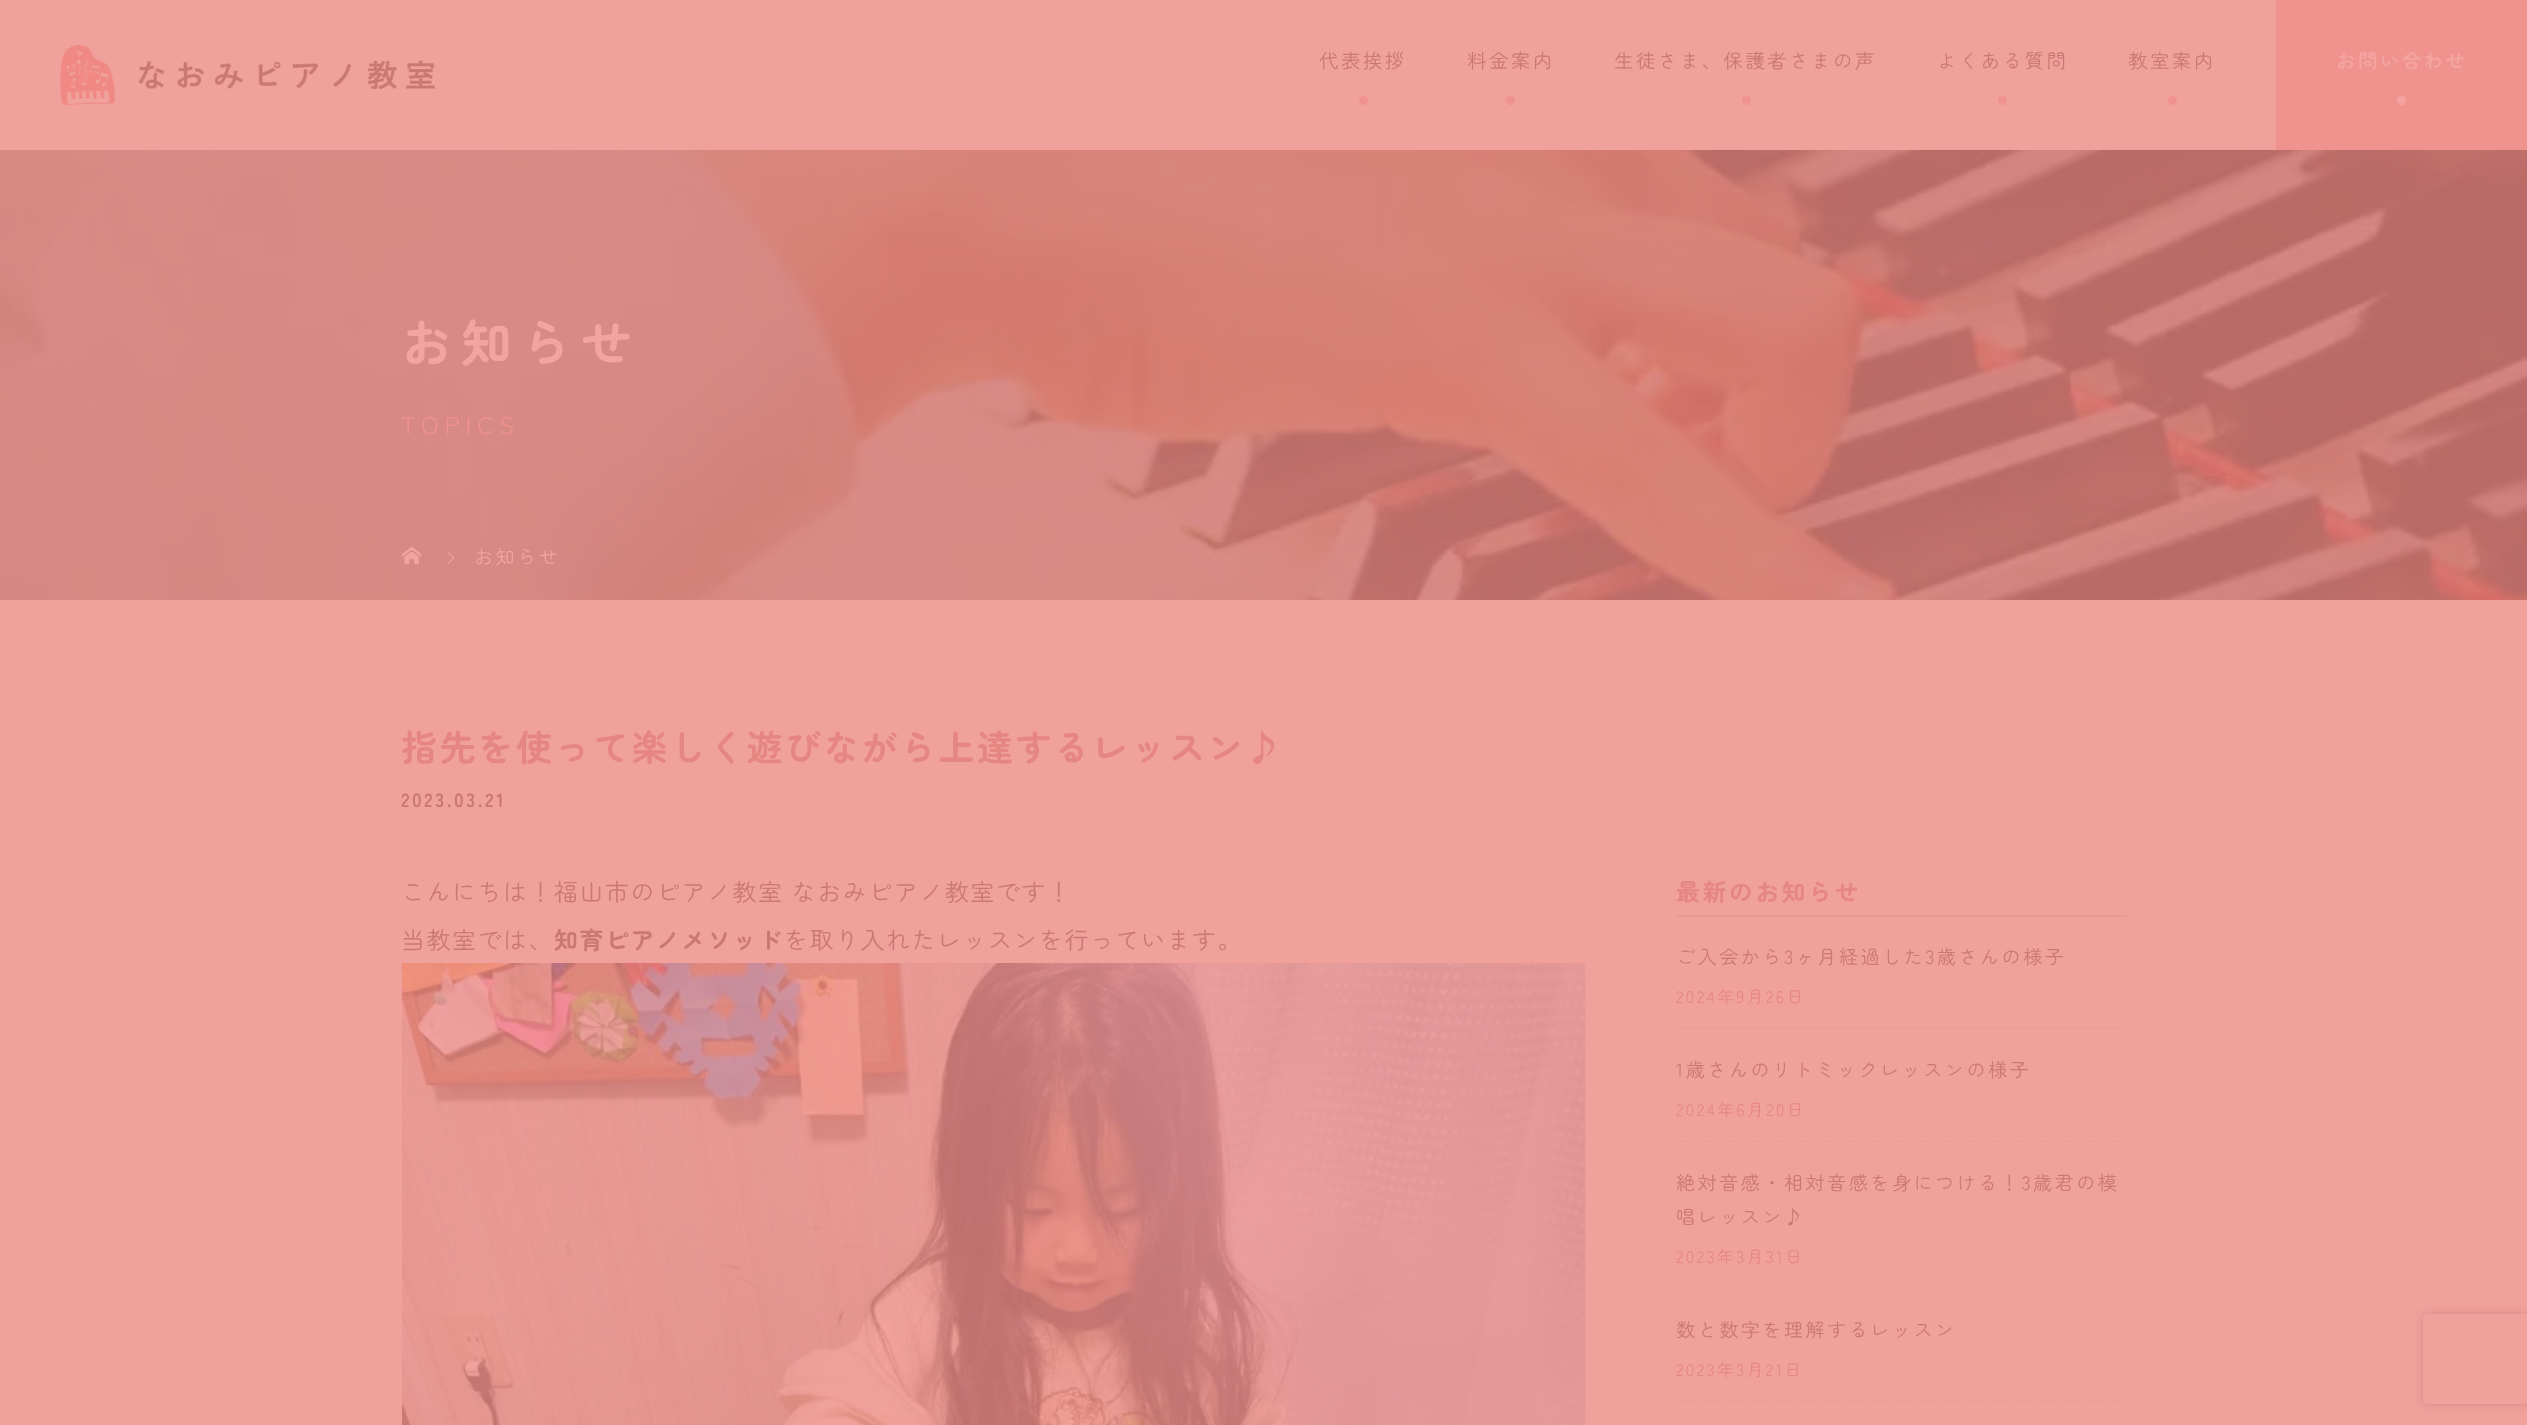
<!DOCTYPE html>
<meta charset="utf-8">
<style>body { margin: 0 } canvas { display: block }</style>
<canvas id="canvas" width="2527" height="1425"></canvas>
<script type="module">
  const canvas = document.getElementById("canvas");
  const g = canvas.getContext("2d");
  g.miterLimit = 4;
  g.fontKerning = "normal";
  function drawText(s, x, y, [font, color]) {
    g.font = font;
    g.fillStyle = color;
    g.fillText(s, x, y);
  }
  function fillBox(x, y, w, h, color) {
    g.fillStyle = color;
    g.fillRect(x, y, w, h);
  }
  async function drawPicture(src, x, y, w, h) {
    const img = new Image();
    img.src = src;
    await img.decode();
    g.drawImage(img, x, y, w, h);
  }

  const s1 = ["19.5px Zen Maru Gothic", "#C97873"];
  const s2 = ["bold 19.5px Zen Maru Gothic", "#F3A4A0"];
  const s3 = ["bold 51px Zen Maru Gothic", "#F3A4A0"];
  const s4 = ["24px Zen Maru Gothic", "#F0928E"];
  const s5 = ["19.2px Zen Maru Gothic", "#F3A4A0"];
  const s6 = ["bold 36px Zen Maru Gothic", "#E68682"];
  const s7 = ["bold 19.2px Zen Maru Gothic", "#C97873"];
  const s8 = ["24px Zen Maru Gothic", "#C97873"];
  const s9 = ["bold 24px Zen Maru Gothic", "#C97873"];
  const s10 = ["bold 24px Zen Maru Gothic", "#E68682"];
  const s11 = ["19.2px Zen Maru Gothic", "#C97873"];
  const s12 = ["16.75px Zen Maru Gothic", "#E68682"];

  fillBox(0, 0, 2527, 1425, "#F1A19C");
  await drawPicture("pic1.png", 60, 45, 375, 60);
  g.letterSpacing = "2.4px";
  drawText("代表挨拶", 1319, 68, s1);
  g.fillStyle = "#F0928E";
  g.beginPath();
  g.arc(1363.5, 100.5, 4.5, 0, Math.PI * 2);
  g.fill();
  drawText("料金案内", 1467, 68, s1);
  g.fillStyle = "#F0928E";
  g.beginPath();
  g.arc(1510.5, 100.5, 4.5, 0, Math.PI * 2);
  g.fill();
  drawText("生徒さま、保護者さまの声", 1614, 68, s1);
  g.fillStyle = "#F0928E";
  g.beginPath();
  g.arc(1746.5, 100.5, 4.5, 0, Math.PI * 2);
  g.fill();
  drawText("よくある質問", 1937, 68, s1);
  g.fillStyle = "#F0928E";
  g.beginPath();
  g.arc(2002.5, 100.5, 4.5, 0, Math.PI * 2);
  g.fill();
  drawText("教室案内", 2128, 68, s1);
  g.fillStyle = "#F0928E";
  g.beginPath();
  g.arc(2172.5, 100.5, 4.5, 0, Math.PI * 2);
  g.fill();
  fillBox(2276, 0, 251, 150, "#F0928E");
  drawText("お問い合わせ", 2336, 68, s2);
  g.beginPath();
  g.arc(2401.5, 100.5, 4.5, 0, Math.PI * 2);
  g.fill();
  await drawPicture("pic2.png", 0, 150, 2527, 450);
  g.letterSpacing = "9px";
  drawText("お知らせ", 401, 362, s3);
  g.letterSpacing = "6px";
  drawText("TOPICS", 401, 434, s4);
  await drawPicture("pic3.png", 402, 546, 20, 18);
  await drawPicture("pic4.png", 448, 552, 7, 12);
  g.letterSpacing = "2.4px";
  drawText("お知らせ", 474, 564, s5);
  drawText("指先を使って楽しく遊びながら上達するレッスン♪", 401, 761, s6);
  drawText("2023.03.21", 401, 807, s7);
  g.letterSpacing = "1.5px";
  drawText("こんにちは！福山市のピアノ教室 なおみピアノ教室です！", 401, 901, s8);
  drawText("当教室では、", 401, 949, s8);
  drawText("知育ピアノメソッド", 554, 949, s9);
  drawText("を取り入れたレッスンを行っています。", 784, 949, s8);
  await drawPicture("pic5.png", 402, 963, 1184, 462);
  fillBox(1677, 915, 450, 2, "#EA9994");
  g.letterSpacing = "2.4px";
  drawText("最新のお知らせ", 1676, 901, s10);
  g.beginPath();
  g.moveTo(1677, 1028);
  g.lineTo(2127, 1028);
  g.strokeStyle = "#EA9994";
  g.lineWidth = 1.5;
  g.setLineDash([1.5, 1.5]);
  g.stroke();
  drawText("ご入会から3ヶ月経過した3歳さんの様子", 1676, 964, s11);
  drawText("2024年9月26日", 1676, 1003, s12);
  g.beginPath();
  g.moveTo(1677, 1141);
  g.lineTo(2127, 1141);
  g.stroke();
  drawText("1歳さんのリトミックレッスンの様子", 1676, 1077, s11);
  drawText("2024年6月20日", 1676, 1116, s12);
  g.beginPath();
  g.moveTo(1677, 1288);
  g.lineTo(2127, 1288);
  g.stroke();
  drawText("絶対音感・相対音感を身につける！3歳君の模", 1676, 1190, s11);
  drawText("唱レッスン♪", 1676, 1224, s11);
  drawText("2023年3月31日", 1676, 1263, s12);
  g.beginPath();
  g.moveTo(1677, 1402);
  g.lineTo(2127, 1402);
  g.stroke();
  drawText("数と数字を理解するレッスン", 1676, 1337, s11);
  drawText("2023年3月21日", 1676, 1376, s12);
  g.save();
  g.beginPath();
  g.moveTo(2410, 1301);
  g.lineTo(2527, 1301);
  g.lineTo(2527, 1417);
  g.lineTo(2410, 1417);
  g.closePath();
  g.moveTo(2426, 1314);
  g.lineTo(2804, 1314);
  g.bezierCurveTo(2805.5, 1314, 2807, 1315.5, 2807, 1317);
  g.lineTo(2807, 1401);
  g.bezierCurveTo(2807, 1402.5, 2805.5, 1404, 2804, 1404);
  g.lineTo(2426, 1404);
  g.bezierCurveTo(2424.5, 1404, 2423, 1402.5, 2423, 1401);
  g.lineTo(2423, 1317);
  g.bezierCurveTo(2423, 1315.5, 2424.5, 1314, 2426, 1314);
  g.closePath();
  g.clip("evenodd");
  g.fillStyle = "#D68783";
  g.filter = "blur(4px)";
  g.beginPath();
  g.roundRect(2423, 1314, 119, 90, 3);
  g.fill();
  g.filter = "none";
  g.restore();
</script>
